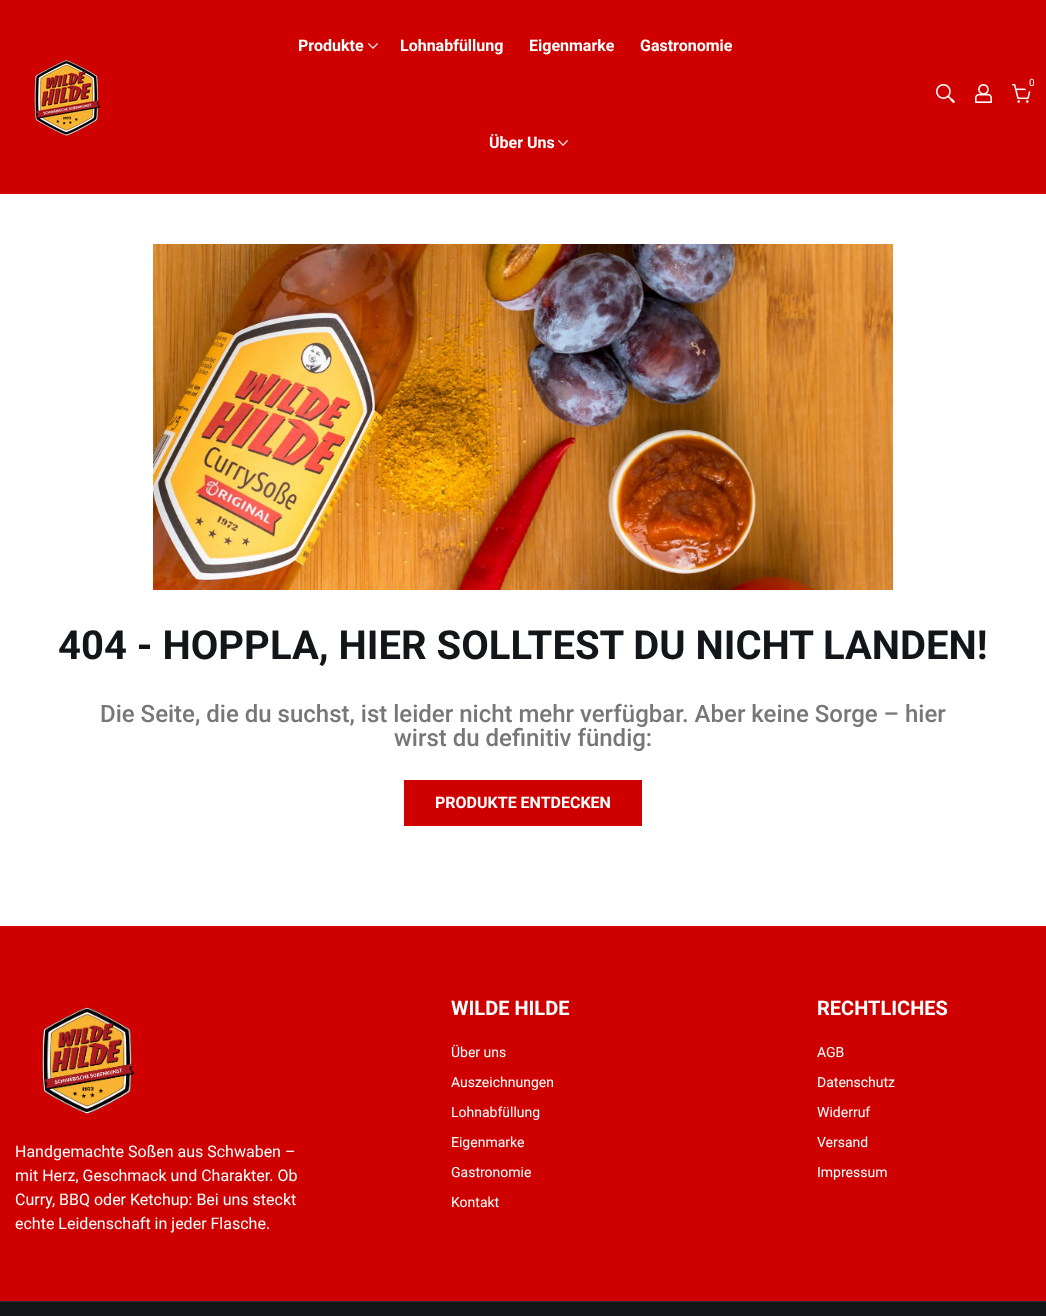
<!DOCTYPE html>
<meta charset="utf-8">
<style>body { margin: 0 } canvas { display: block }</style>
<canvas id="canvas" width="1046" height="1316"></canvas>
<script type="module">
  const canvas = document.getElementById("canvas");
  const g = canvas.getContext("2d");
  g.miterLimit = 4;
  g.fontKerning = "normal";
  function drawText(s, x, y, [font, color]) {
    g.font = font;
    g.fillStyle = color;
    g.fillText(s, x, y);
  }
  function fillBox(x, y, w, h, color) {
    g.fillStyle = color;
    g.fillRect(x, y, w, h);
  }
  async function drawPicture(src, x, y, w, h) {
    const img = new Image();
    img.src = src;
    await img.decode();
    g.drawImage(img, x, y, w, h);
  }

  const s1 = ["bold 16px Roboto", "#FFFFFF"];
  const s2 = ["10px Roboto", "#FFFFFF"];
  const s3 = ["bold 40px Roboto", "#121619"];
  const s4 = ["500 24px Roboto", "#777777"];
  const s5 = ["16px Roboto", "#FFFFFF"];
  const s6 = ["bold 20px Roboto", "#FFFFFF"];
  const s7 = ["14px Roboto", "#FFFFFF"];

  fillBox(0, 0, 1046, 1316, "#FFFFFF");
  fillBox(0, 0, 1046, 194, "#CE0000");
  await drawPicture("pic1.png", 34, 60, 67, 76);
  drawText("Produkte", 298, 51, s1);
  await drawPicture("pic2.png", 368, 43, 10, 6);
  drawText("Lohnabfüllung", 400, 51, s1);
  drawText("Eigenmarke", 529, 51, s1);
  drawText("Gastronomie", 640, 51, s1);
  drawText("Über Uns", 489, 148, s1);
  await drawPicture("pic2.png", 558, 140, 10, 6);
  await drawPicture("pic3.png", 1012, 84, 19, 19);
  g.fillStyle = "#CE0000";
  g.beginPath();
  g.arc(1032, 83, 9, 0, Math.PI * 2);
  g.fill();
  drawText("0", 1029, 86, s2);
  await drawPicture("pic4.png", 936, 84, 19, 19);
  await drawPicture("pic5.png", 975, 84, 17, 19);
  await drawPicture("pic6.png", 153, 244, 740, 346);
  drawText("404 - HOPPLA, HIER SOLLTEST DU NICHT LANDEN!", 58, 659, s3);
  drawText("Die Seite, die du suchst, ist leider nicht mehr verfügbar. Aber keine Sorge – hier", 100, 722, s4);
  drawText("wirst du definitiv fündig:", 394, 746, s4);
  fillBox(404, 780, 238, 46, "#CE0000");
  drawText("PRODUKTE ENTDECKEN", 435, 808, s1);
  fillBox(0, 926, 1046, 375, "#CE0000");
  await drawPicture("pic7.png", 42, 1007, 94, 107);
  drawText("Handgemachte Soßen aus Schwaben –", 15, 1157, s5);
  drawText("mit Herz, Geschmack und Charakter. Ob", 15, 1181, s5);
  drawText("Curry, BBQ oder Ketchup: Bei uns steckt", 15, 1205, s5);
  drawText("echte Leidenschaft in jeder Flasche.", 15, 1229, s5);
  drawText("WILDE HILDE", 451, 1015, s6);
  drawText("Über uns", 451, 1057, s7);
  drawText("Auszeichnungen", 451, 1087, s7);
  drawText("Lohnabfüllung", 451, 1117, s7);
  drawText("Eigenmarke", 451, 1147, s7);
  drawText("Gastronomie", 451, 1177, s7);
  drawText("Kontakt", 451, 1207, s7);
  drawText("RECHTLICHES", 817, 1015, s6);
  drawText("AGB", 817, 1057, s7);
  drawText("Datenschutz", 817, 1087, s7);
  drawText("Widerruf", 817, 1117, s7);
  drawText("Versand", 817, 1147, s7);
  drawText("Impressum", 817, 1177, s7);
  fillBox(0, 1302, 1046, 14, "#121619");
  fillBox(0, 1301, 1046, 1, "#2B2C2D");
</script>
